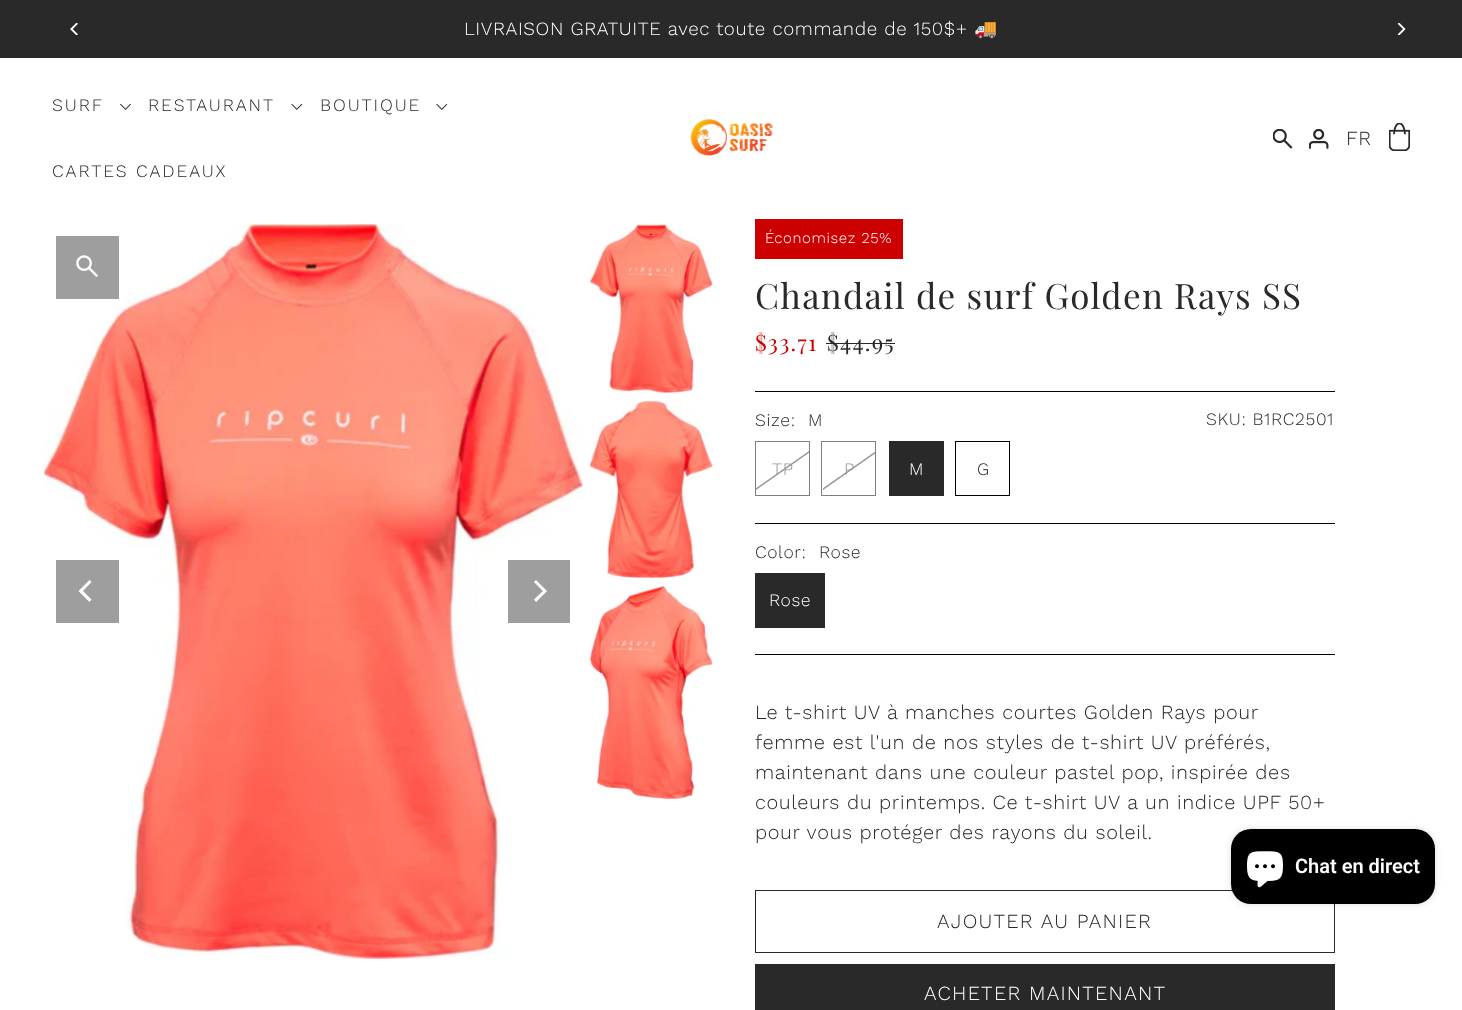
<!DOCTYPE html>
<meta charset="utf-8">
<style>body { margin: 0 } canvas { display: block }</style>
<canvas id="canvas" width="1462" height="1010"></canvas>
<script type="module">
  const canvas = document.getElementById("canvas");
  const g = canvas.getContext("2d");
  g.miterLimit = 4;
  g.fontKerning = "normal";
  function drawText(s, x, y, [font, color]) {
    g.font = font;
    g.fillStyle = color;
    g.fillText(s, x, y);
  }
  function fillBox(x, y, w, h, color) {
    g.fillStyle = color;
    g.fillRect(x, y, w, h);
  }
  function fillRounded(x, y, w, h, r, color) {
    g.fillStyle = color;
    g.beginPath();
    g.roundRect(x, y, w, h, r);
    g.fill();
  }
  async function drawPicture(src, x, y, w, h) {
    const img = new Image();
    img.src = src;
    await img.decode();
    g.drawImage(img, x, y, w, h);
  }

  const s1 = ["300 18.75px Work Sans", "#FFFFFF"];
  const s2 = ["18.75px Noto Color Emoji", "#FFFFFF"];
  const s3 = ["300 17.5px Work Sans", "#292929"];
  const s4 = ["300 20px Work Sans", "#292929"];
  const s5 = ["300 15px Work Sans", "#FFFFFF"];
  const s6 = ["35px Playfair Display", "#292929"];
  const s7 = ["22.5px Playfair Display", "#CC0000"];
  const s8 = ["22.5px Playfair Display", "#292929"];
  const s9 = ["300 17.5px Work Sans", "#949494"];
  const s10 = ["300 17.5px Work Sans", "#FFFFFF"];
  const s11 = ["300 20px Work Sans", "#FFFFFF"];
  const s12 = ["600 20px Roboto", "#FFFFFF"];

  fillBox(0, 0, 1462, 1010, "#FFFFFF");
  fillBox(0, 0, 1462, 58, "#292929");
  await drawPicture("pic1.png", 70, 23, 8, 12);
  g.letterSpacing = "0.62px";
  drawText("LIVRAISON GRATUITE avec toute commande de 150$+", 464, 35, s1);
  drawText("🚚", 974, 35, s2);
  await drawPicture("pic2.png", 1397, 23, 9, 12);
  g.letterSpacing = "1.9px";
  drawText("SURF", 52, 111, s3);
  await drawPicture("pic3.png", 120, 104, 11, 6);
  drawText("RESTAURANT", 148, 111, s3);
  await drawPicture("pic4.png", 291, 104, 12, 6);
  drawText("BOUTIQUE", 320, 111, s3);
  await drawPicture("pic4.png", 436, 104, 12, 6);
  drawText("CARTES CADEAUX", 52, 177, s3);
  await drawPicture("pic5.png", 690, 118, 83, 39);
  await drawPicture("pic6.png", 1273, 129, 20, 20);
  await drawPicture("pic7.png", 1309, 129, 20, 20);
  g.letterSpacing = "0.62px";
  drawText("FR", 1346, 145, s4);
  await drawPicture("pic8.png", 1389, 123, 21, 28);
  await drawPicture("pic9.png", 44, 224, 539, 735);
  fillBox(56, 236, 63, 63, "#9E9E9E");
  await drawPicture("pic10.png", 76, 255, 22, 22);
  fillBox(56, 560, 63, 63, "#9E9E9E");
  g.fillStyle = "#FFFFFF";
  g.beginPath();
  g.moveTo(78.5, 591);
  g.lineTo(89.5, 602);
  g.lineTo(91.5, 599.5);
  g.lineTo(83, 591);
  g.lineTo(91.5, 582);
  g.lineTo(89.5, 580);
  g.closePath();
  g.fill();
  fillBox(508, 560, 62, 63, "#9E9E9E");
  g.fillStyle = "#FFFFFF";
  g.beginPath();
  g.moveTo(547, 591);
  g.lineTo(536, 580);
  g.lineTo(534, 582);
  g.lineTo(543, 591);
  g.lineTo(534, 599.5);
  g.lineTo(536, 602);
  g.closePath();
  g.fill();
  await drawPicture("pic11.png", 589, 224, 124, 169);
  await drawPicture("pic12.png", 589, 400, 124, 178);
  await drawPicture("pic13.png", 589, 585, 124, 214);
  fillBox(755, 219, 148, 40, "#CC0000");
  drawText("Économisez 25%", 765, 243, s5);
  g.letterSpacing = "1.25px";
  drawText("Chandail de surf Golden Rays SS", 755, 309, s6);
  drawText("$33.71", 755, 351, s7);
  drawText("$44.95", 827, 351, s8);
  fillBox(826, 343, 69, 1, "#292929");
  fillBox(755, 654, 580, 1, "#000000");
  fillBox(755, 391, 580, 1, "#000000");
  g.letterSpacing = "0.62px";
  drawText("Size:", 755, 426, s3);
  drawText("M", 808, 426, s3);
  g.strokeStyle = "#808080";
  g.strokeRect(755.5, 441.5, 54, 54);
  g.save();
  g.beginPath();
  g.rect(756, 443, 53, 52);
  g.clip();
  g.fillStyle = "#949494";
  g.beginPath();
  g.moveTo(812, 449);
  g.lineTo(813, 450);
  g.lineTo(756, 490);
  g.lineTo(755, 489);
  g.closePath();
  g.fill();
  g.restore();
  drawText("TP", 772, 475, s9);
  g.strokeRect(821.5, 441.5, 54, 54);
  g.save();
  g.beginPath();
  g.rect(823, 443, 52, 52);
  g.clip();
  g.beginPath();
  g.moveTo(879, 449);
  g.lineTo(880, 450);
  g.lineTo(823, 490);
  g.lineTo(822, 489);
  g.closePath();
  g.fill();
  g.restore();
  drawText("P", 844, 475, s9);
  fillBox(889, 441, 55, 55, "#292929");
  drawText("M", 909, 475, s10);
  g.strokeStyle = "#000000";
  g.strokeRect(955.5, 441.5, 54, 54);
  drawText("G", 977, 475, s3);
  fillBox(755, 523, 580, 1, "#000000");
  drawText("Color:", 755, 558, s3);
  drawText("Rose", 819, 558, s3);
  fillBox(755, 573, 70, 55, "#292929");
  drawText("Rose", 769, 606, s10);
  drawText("SKU: B1RC2501", 1206, 425, s3);
  drawText("Le t-shirt UV à manches courtes Golden Rays pour", 755, 719, s4);
  drawText("femme est l'un de nos styles de t-shirt UV préférés,", 755, 749, s4);
  drawText("maintenant dans une couleur pastel pop, inspirée des", 755, 779, s4);
  drawText("couleurs du printemps. Ce t-shirt UV a un indice UPF 50+", 755, 809, s4);
  drawText("pour vous protéger des rayons du soleil.", 755, 839, s4);
  g.strokeStyle = "#292929";
  g.strokeRect(755.5, 890.5, 579, 62);
  g.letterSpacing = "1.25px";
  drawText("AJOUTER AU PANIER", 937, 928, s4);
  fillBox(755, 964, 580, 46, "#292929");
  drawText("ACHETER MAINTENANT", 924, 1000, s11);
  g.fillStyle = "rgba(0, 0, 0, 0.15)";
  g.filter = "blur(3px)";
  g.beginPath();
  g.roundRect(1231, 829, 204, 75, 20);
  g.fill();
  g.filter = "none";
  fillRounded(1231, 829, 204, 75, 20, "#000000");
  await drawPicture("pic14.png", 1247, 851, 36, 37);
  g.letterSpacing = "0px";
  drawText("Chat en direct", 1295, 873, s12);
</script>
